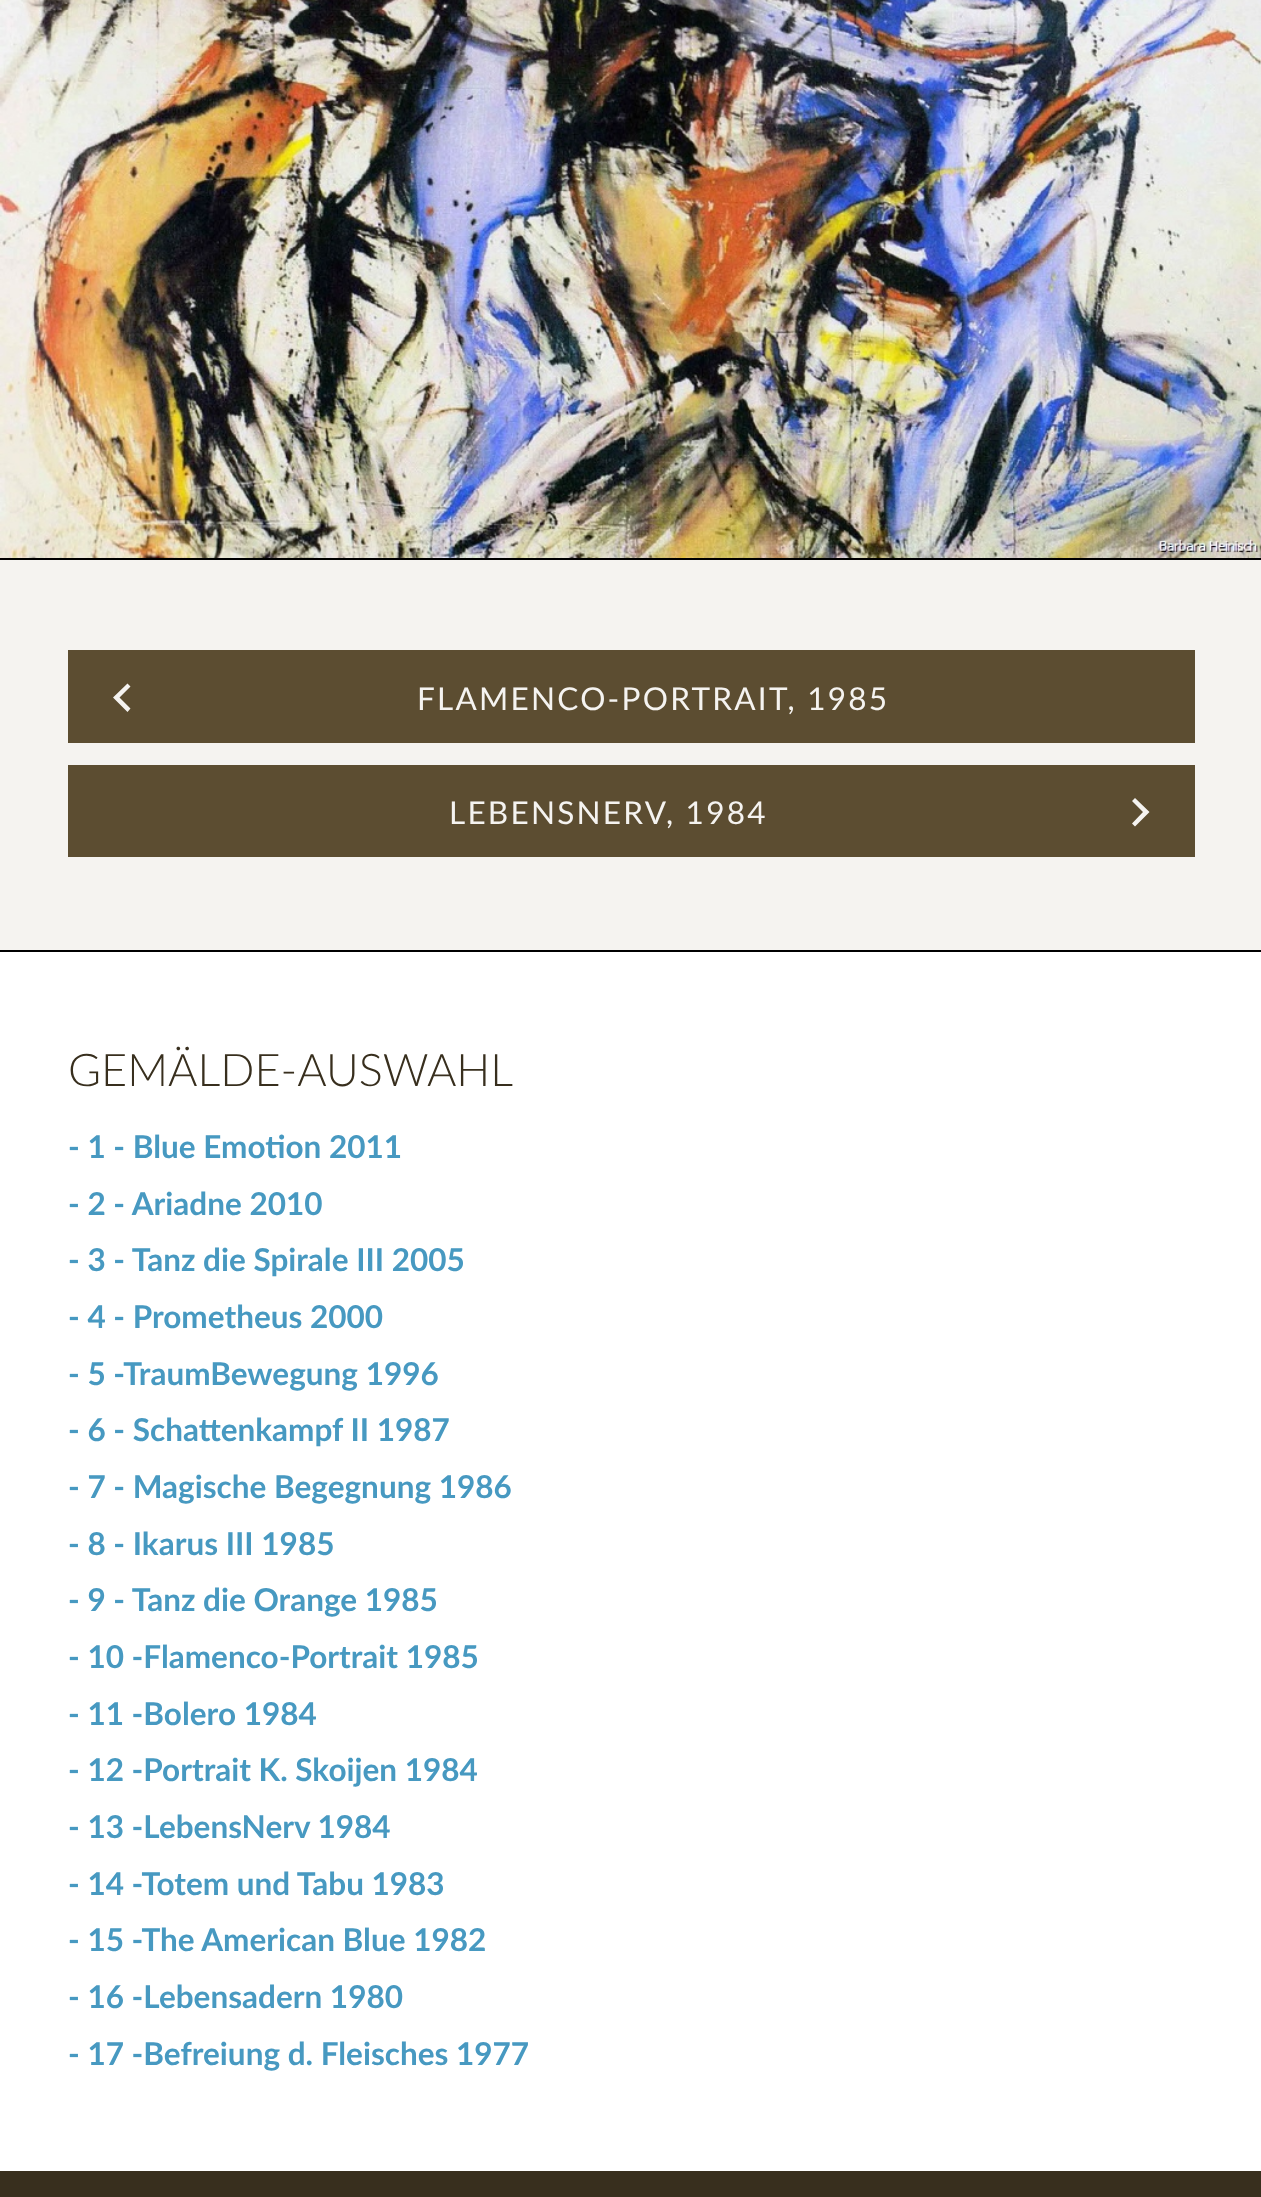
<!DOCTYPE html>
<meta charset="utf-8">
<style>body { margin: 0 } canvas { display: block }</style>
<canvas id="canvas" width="1261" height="2197"></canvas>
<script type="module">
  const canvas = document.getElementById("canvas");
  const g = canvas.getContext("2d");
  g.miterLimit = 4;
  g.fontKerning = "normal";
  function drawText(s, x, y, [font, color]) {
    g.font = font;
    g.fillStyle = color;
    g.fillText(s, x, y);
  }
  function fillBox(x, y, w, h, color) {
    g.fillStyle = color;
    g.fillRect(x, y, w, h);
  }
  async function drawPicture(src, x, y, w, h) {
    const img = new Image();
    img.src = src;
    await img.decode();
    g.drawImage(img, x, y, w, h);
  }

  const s1 = ["31.5px Lato", "#F5F3F0"];
  const s2 = ["300 45px Lato", "#382F1E"];
  const s3 = ["bold 31.5px Lato", "#4799C1"];

  fillBox(0, 0, 1261, 2197, "#F5F3F0");
  fillBox(0, 558, 1261, 2, "#000000");
  await drawPicture("pic1.png", 0, 0, 1261, 558);
  fillBox(68, 650, 1127, 93, "#5C4D31");
  g.fillStyle = "#F5F3F0";
  g.beginPath();
  g.moveTo(113, 697.5);
  g.lineTo(127.5, 683.5);
  g.lineTo(130.5, 686.5);
  g.lineTo(119.5, 697.5);
  g.lineTo(130.5, 708.5);
  g.lineTo(127.5, 712);
  g.closePath();
  g.fill();
  g.letterSpacing = "2.25px";
  drawText("FLAMENCO-PORTRAIT, 1985", 417, 710, s1);
  fillBox(68, 765, 1127, 92, "#5C4D31");
  g.fillStyle = "#F5F3F0";
  g.beginPath();
  g.moveTo(1149.5, 812);
  g.lineTo(1135, 826.5);
  g.lineTo(1132, 823.5);
  g.lineTo(1143, 812);
  g.lineTo(1132, 801);
  g.lineTo(1135, 798);
  g.closePath();
  g.fill();
  drawText("LEBENSNERV, 1984", 449, 824, s1);
  fillBox(0, 952, 1261, 1219, "#FFFFFF");
  fillBox(0, 950, 1261, 2, "#000000");
  g.letterSpacing = "0px";
  drawText("GEMÄLDE-AUSWAHL", 68, 1086, s2);
  drawText("- 1 - Blue Emotion 2011", 68, 1158, s3);
  drawText("- 2 - Ariadne 2010", 68, 1215, s3);
  drawText("- 3 - Tanz die Spirale III 2005", 68, 1271, s3);
  drawText("- 4 - Prometheus 2000", 68, 1328, s3);
  drawText("- 5 -TraumBewegung 1996", 68, 1385, s3);
  drawText("- 6 - Schattenkampf II 1987", 68, 1441, s3);
  drawText("- 7 - Magische Begegnung 1986", 68, 1498, s3);
  drawText("- 8 - Ikarus III 1985", 68, 1555, s3);
  drawText("- 9 - Tanz die Orange 1985", 68, 1611, s3);
  drawText("- 10 -Flamenco-Portrait 1985", 68, 1668, s3);
  drawText("- 11 -Bolero 1984", 68, 1725, s3);
  drawText("- 12 -Portrait K. Skoijen 1984", 68, 1781, s3);
  drawText("- 13 -LebensNerv 1984", 68, 1838, s3);
  drawText("- 14 -Totem und Tabu 1983", 68, 1895, s3);
  drawText("- 15 -The American Blue 1982", 68, 1951, s3);
  drawText("- 16 -Lebensadern 1980", 68, 2008, s3);
  drawText("- 17 -Befreiung d. Fleisches 1977", 68, 2065, s3);
  fillBox(0, 2171, 1261, 26, "#382F1E");
</script>
